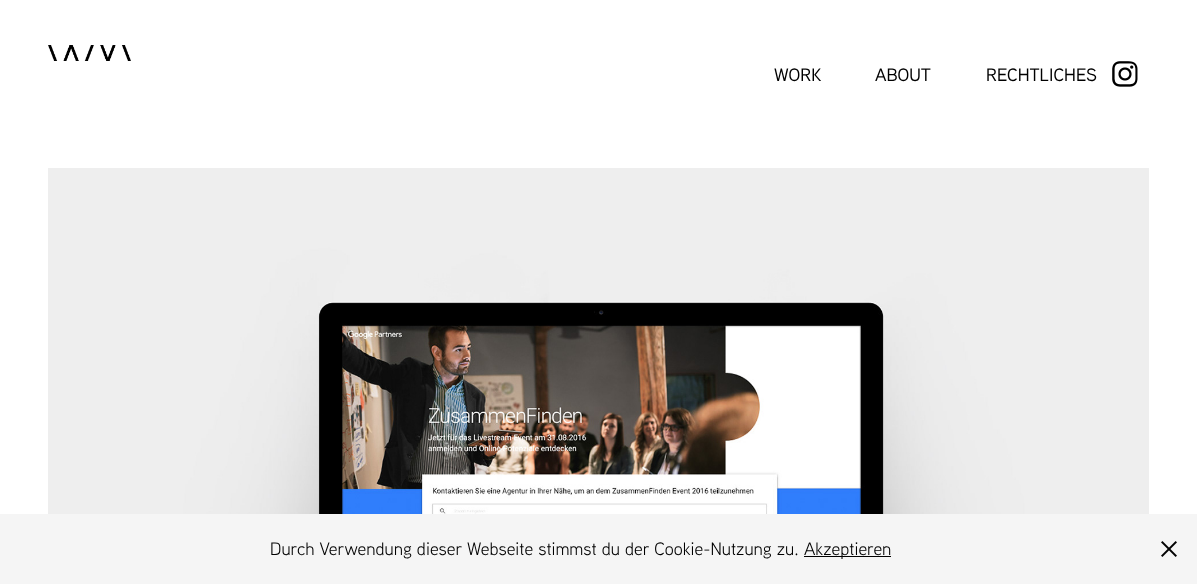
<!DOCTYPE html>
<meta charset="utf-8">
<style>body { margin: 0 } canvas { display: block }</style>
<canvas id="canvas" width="1197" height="584"></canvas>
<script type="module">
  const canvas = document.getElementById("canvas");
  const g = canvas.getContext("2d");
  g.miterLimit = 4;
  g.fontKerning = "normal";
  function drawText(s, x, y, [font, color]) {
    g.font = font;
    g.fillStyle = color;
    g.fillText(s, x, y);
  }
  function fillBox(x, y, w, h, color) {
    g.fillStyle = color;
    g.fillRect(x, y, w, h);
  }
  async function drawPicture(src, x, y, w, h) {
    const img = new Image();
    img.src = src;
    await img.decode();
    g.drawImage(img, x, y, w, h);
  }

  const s1 = ["500 18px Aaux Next", "#000000"];
  const s2 = ["18px Aaux Next", "#000000"];

  fillBox(0, 0, 1197, 584, "#FFFFFF");
  await drawPicture("pic1.png", 48, 45, 83, 16);
  drawText("WORK", 774, 81, s1);
  drawText("ABOUT", 875, 81, s1);
  drawText("RECHTLICHES", 986, 81, s1);
  await drawPicture("pic2.png", 1112, 61, 26, 26);
  await drawPicture("pic3.png", 48, 168, 1101, 346);
  fillBox(0, 514, 1197, 70, "#F5F5F5");
  drawText("Durch Verwendung dieser Webseite stimmst du der Cookie-Nutzung zu.", 270, 555, s2);
  fillBox(804, 556, 87, 1, "#010101");
  drawText("Akzeptieren", 804, 555, s2);
  await drawPicture("pic4.png", 1161, 541, 16, 16);
</script>
